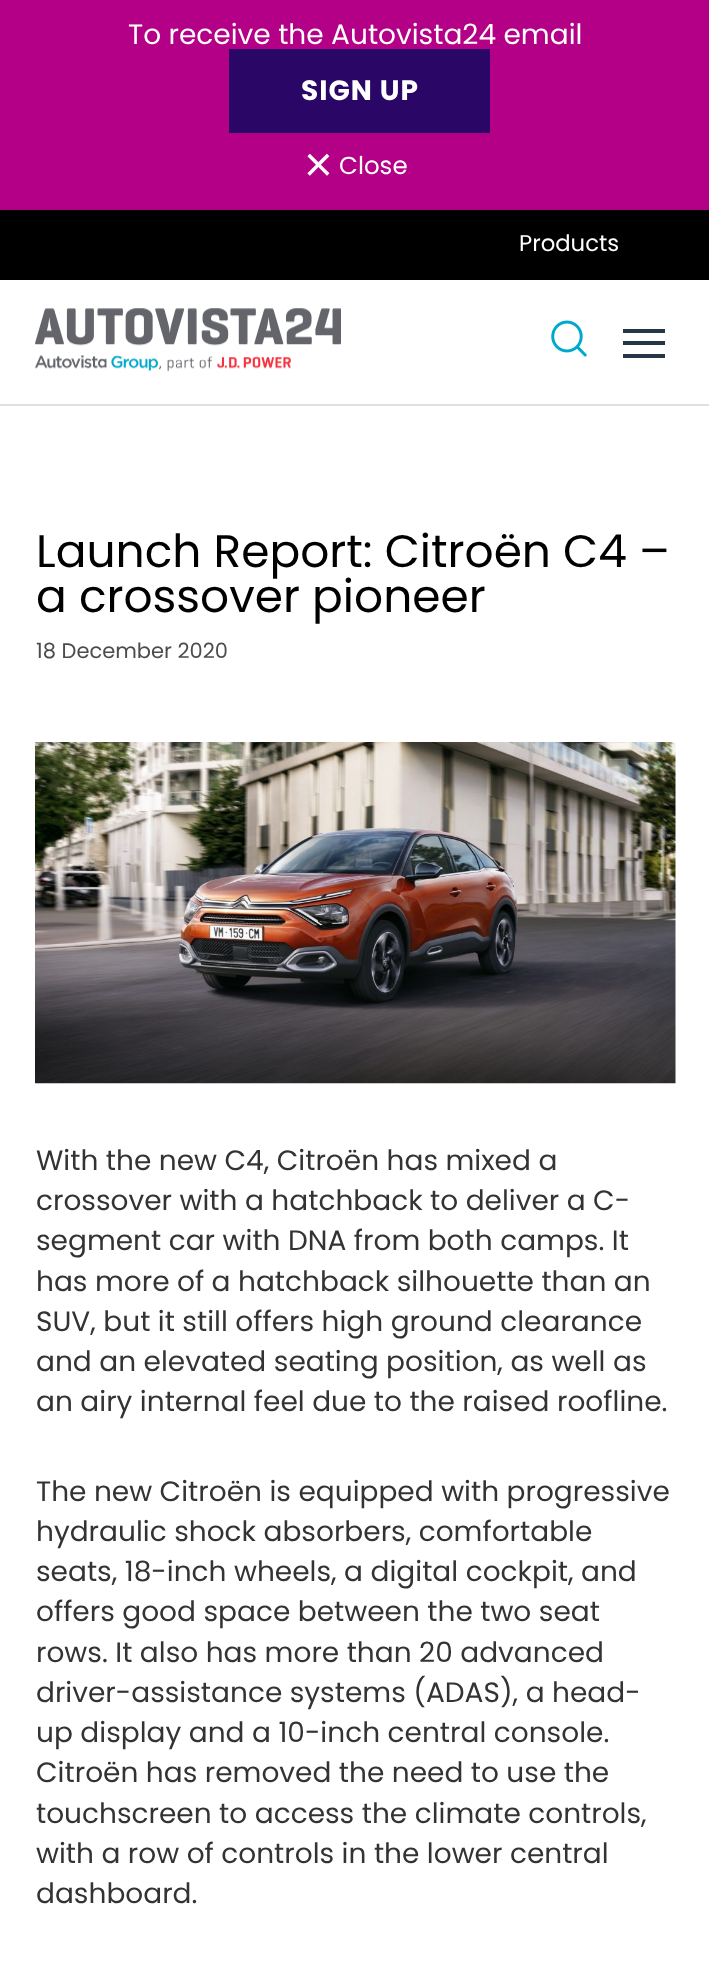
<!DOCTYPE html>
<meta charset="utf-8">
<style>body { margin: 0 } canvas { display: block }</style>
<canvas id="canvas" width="709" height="1975"></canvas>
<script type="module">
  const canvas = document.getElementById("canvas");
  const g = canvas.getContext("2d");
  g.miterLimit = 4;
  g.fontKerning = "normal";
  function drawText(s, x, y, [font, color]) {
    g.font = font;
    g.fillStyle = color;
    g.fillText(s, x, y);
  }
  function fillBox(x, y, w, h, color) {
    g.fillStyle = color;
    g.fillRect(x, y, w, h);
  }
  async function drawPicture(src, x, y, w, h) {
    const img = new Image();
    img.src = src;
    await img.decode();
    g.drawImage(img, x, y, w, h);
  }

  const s1 = ["28px Poppins", "#FFFFFF"];
  const s2 = ["bold 28px Poppins", "#FFFFFF"];
  const s3 = ["300 52px Poppins", "#FFFFFF"];
  const s4 = ["24.5px Poppins", "#FFFFFF"];
  const s5 = ["22.75px Poppins", "#FFFFFF"];
  const s6 = ["45.5px Poppins", "#000000"];
  const s7 = ["21px Poppins", "#4C4C4C"];
  const s8 = ["28px Poppins", "#333333"];

  fillBox(0, 0, 709, 1975, "#FFFFFF");
  fillBox(0, 0, 709, 210, "#B30087");
  drawText("To receive the Autovista24 email", 128, 44, s1);
  fillBox(229, 49, 261, 84, "#2A0666");
  g.letterSpacing = "1px";
  drawText("SIGN UP", 301, 100, s2);
  g.letterSpacing = "0px";
  drawText("×", 303, 184, s3);
  drawText("Close", 339, 174, s4);
  fillBox(0, 210, 709, 70, "#000000");
  drawText("Products", 519, 251, s5);
  fillBox(0, 404, 709, 2, "#DEE1E3");
  await drawPicture("pic1.png", 35, 308, 306, 64);
  await drawPicture("pic2.png", 551, 320, 36, 37);
  fillBox(623, 329, 42, 4, "#253746");
  fillBox(623, 341, 42, 4, "#253746");
  fillBox(623, 354, 42, 4, "#253746");
  drawText("Launch Report: Citroën C4 –", 36, 567, s6);
  drawText("a crossover pioneer", 36, 612, s6);
  drawText("18 December 2020", 36, 658, s7);
  await drawPicture("pic3.png", 35, 742, 641, 342);
  drawText("With the new C4, Citroën has mixed a", 36, 1170, s8);
  drawText("crossover with a hatchback to deliver a C-", 36, 1210, s8);
  drawText("segment car with DNA from both camps. It", 36, 1250, s8);
  drawText("has more of a hatchback silhouette than an", 36, 1291, s8);
  drawText("SUV, but it still offers high ground clearance", 36, 1331, s8);
  drawText("and an elevated seating position, as well as", 36, 1371, s8);
  drawText("an airy internal feel due to the raised roofline.", 36, 1411, s8);
  drawText("The new Citroën is equipped with progressive", 36, 1501, s8);
  drawText("hydraulic shock absorbers, comfortable", 36, 1541, s8);
  drawText("seats, 18-inch wheels, a digital cockpit, and", 36, 1581, s8);
  drawText("offers good space between the two seat", 36, 1621, s8);
  drawText("rows. It also has more than 20 advanced", 36, 1662, s8);
  drawText("driver-assistance systems (ADAS), a head-", 36, 1702, s8);
  drawText("up display and a 10-inch central console.", 36, 1742, s8);
  drawText("Citroën has removed the need to use the", 36, 1782, s8);
  drawText("touchscreen to access the climate controls,", 36, 1823, s8);
  drawText("with a row of controls in the lower central", 36, 1863, s8);
  drawText("dashboard.", 36, 1903, s8);
</script>
